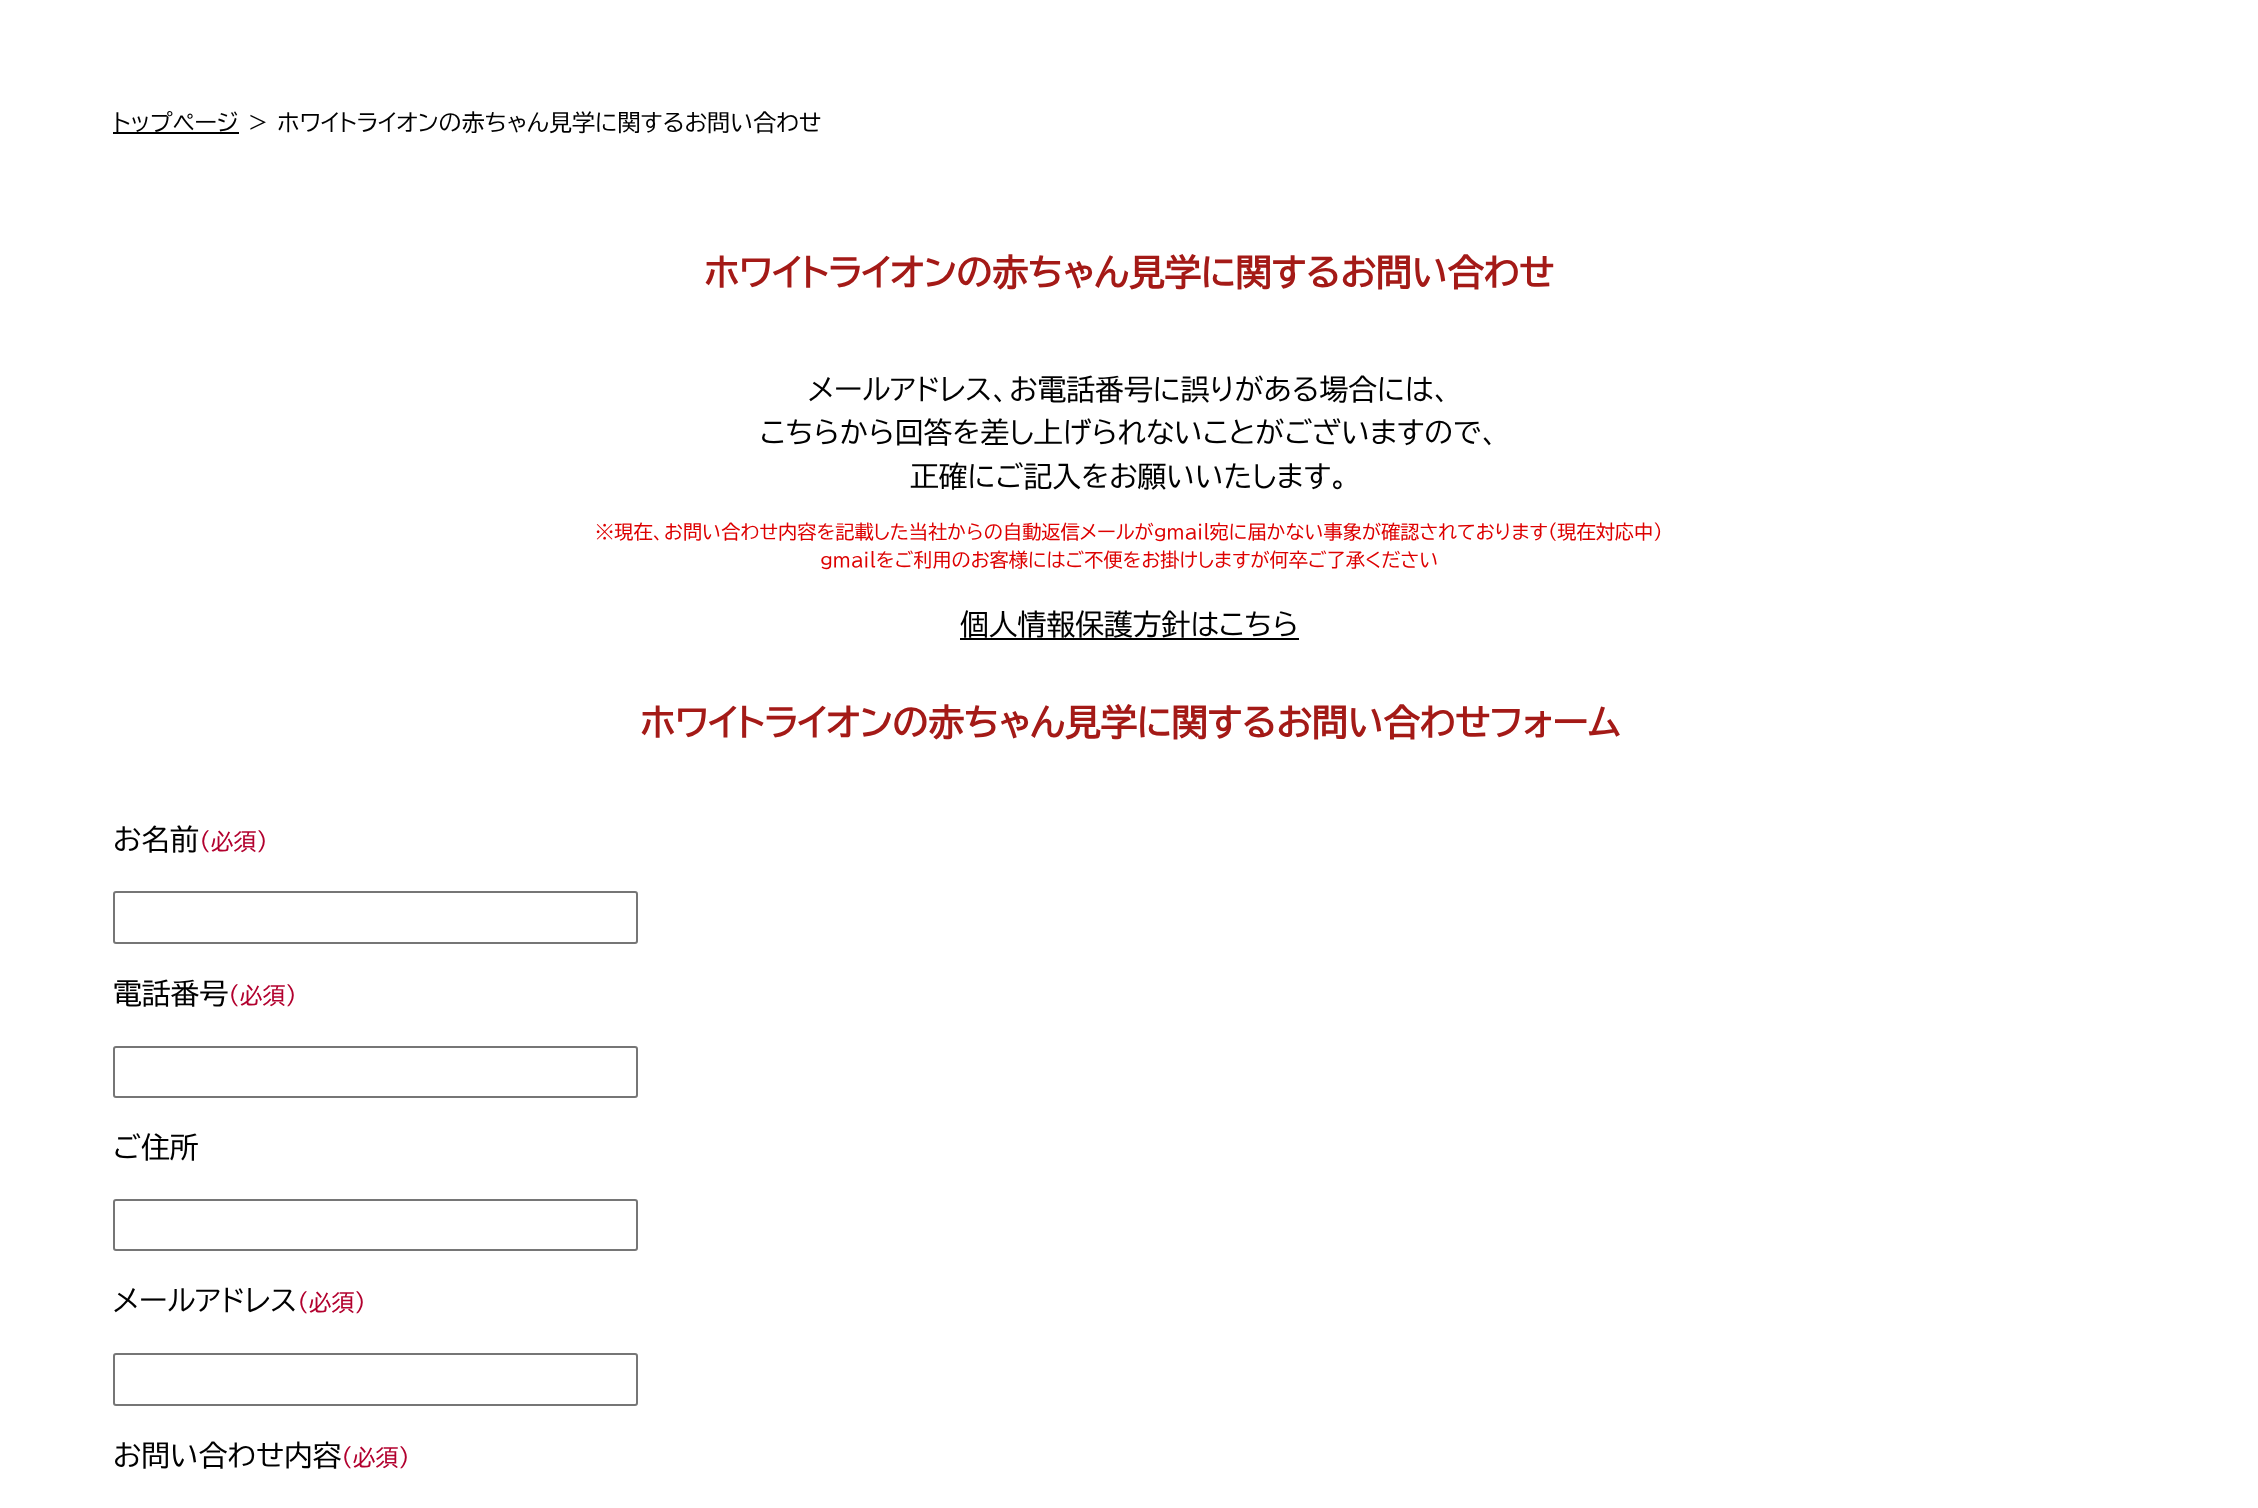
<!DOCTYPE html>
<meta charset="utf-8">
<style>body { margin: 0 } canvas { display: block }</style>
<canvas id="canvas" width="2258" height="1508"></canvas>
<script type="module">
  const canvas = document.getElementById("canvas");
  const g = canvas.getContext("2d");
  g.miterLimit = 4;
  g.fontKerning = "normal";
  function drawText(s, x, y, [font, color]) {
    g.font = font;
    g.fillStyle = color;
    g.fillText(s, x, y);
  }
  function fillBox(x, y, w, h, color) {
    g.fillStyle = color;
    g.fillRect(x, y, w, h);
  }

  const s1 = ["23.05px BIZ UDPGothic", "#000000"];
  const s2 = ["bold 36px BIZ UDPGothic", "#A41A17"];
  const s3 = ["28.8px BIZ UDPGothic", "#000000"];
  const s4 = ["19.2px BIZ UDPGothic", "#DD0000"];
  const s5 = ["23.05px BIZ UDPGothic", "#B2002E"];

  fillBox(0, 0, 2258, 1508, "#FFFFFF");
  fillBox(113, 132, 126, 2, "#000000");
  drawText("トップページ ＞ ホワイトライオンの赤ちゃん見学に関するお問い合わせ", 113, 131, s1);
  drawText("ホワイトライオンの赤ちゃん見学に関するお問い合わせ", 704, 286, s2);
  drawText("メールアドレス、お電話番号に誤りがある場合には、", 808, 400, s3);
  drawText("こちらから回答を差し上げられないことがございますので、", 760, 443, s3);
  drawText("正確にご記入をお願いいたします。", 910, 487, s3);
  drawText("※現在、お問い合わせ内容を記載した当社からの自動返信メールがgmail宛に届かない事象が確認されております（現在対応中）", 595, 539, s4);
  drawText("gmailをご利用のお客様にはご不便をお掛けしますが何卒ご了承ください", 820, 567, s4);
  drawText("個人情報保護方針はこちら", 960, 635, s3);
  fillBox(960, 638, 339, 2, "#000000");
  drawText("ホワイトライオンの赤ちゃん見学に関するお問い合わせフォーム", 640, 736, s2);
  drawText("お名前", 113, 850, s3);
  drawText("（必須）", 199, 850, s5);
  g.beginPath();
  g.roundRect(114, 892, 523, 51, 2);
  g.strokeStyle = "#767676";
  g.lineWidth = 2;
  g.stroke();
  drawText("電話番号", 113, 1004, s3);
  drawText("（必須）", 228, 1004, s5);
  g.beginPath();
  g.roundRect(114, 1047, 523, 50, 2);
  g.stroke();
  drawText("ご住所", 113, 1158, s3);
  g.beginPath();
  g.roundRect(114, 1200, 523, 50, 2);
  g.stroke();
  drawText("メールアドレス", 113, 1311, s3);
  drawText("（必須）", 297, 1311, s5);
  g.beginPath();
  g.roundRect(114, 1354, 523, 51, 2);
  g.stroke();
  drawText("お問い合わせ内容", 113, 1466, s3);
  drawText("（必須）", 341, 1466, s5);
</script>
